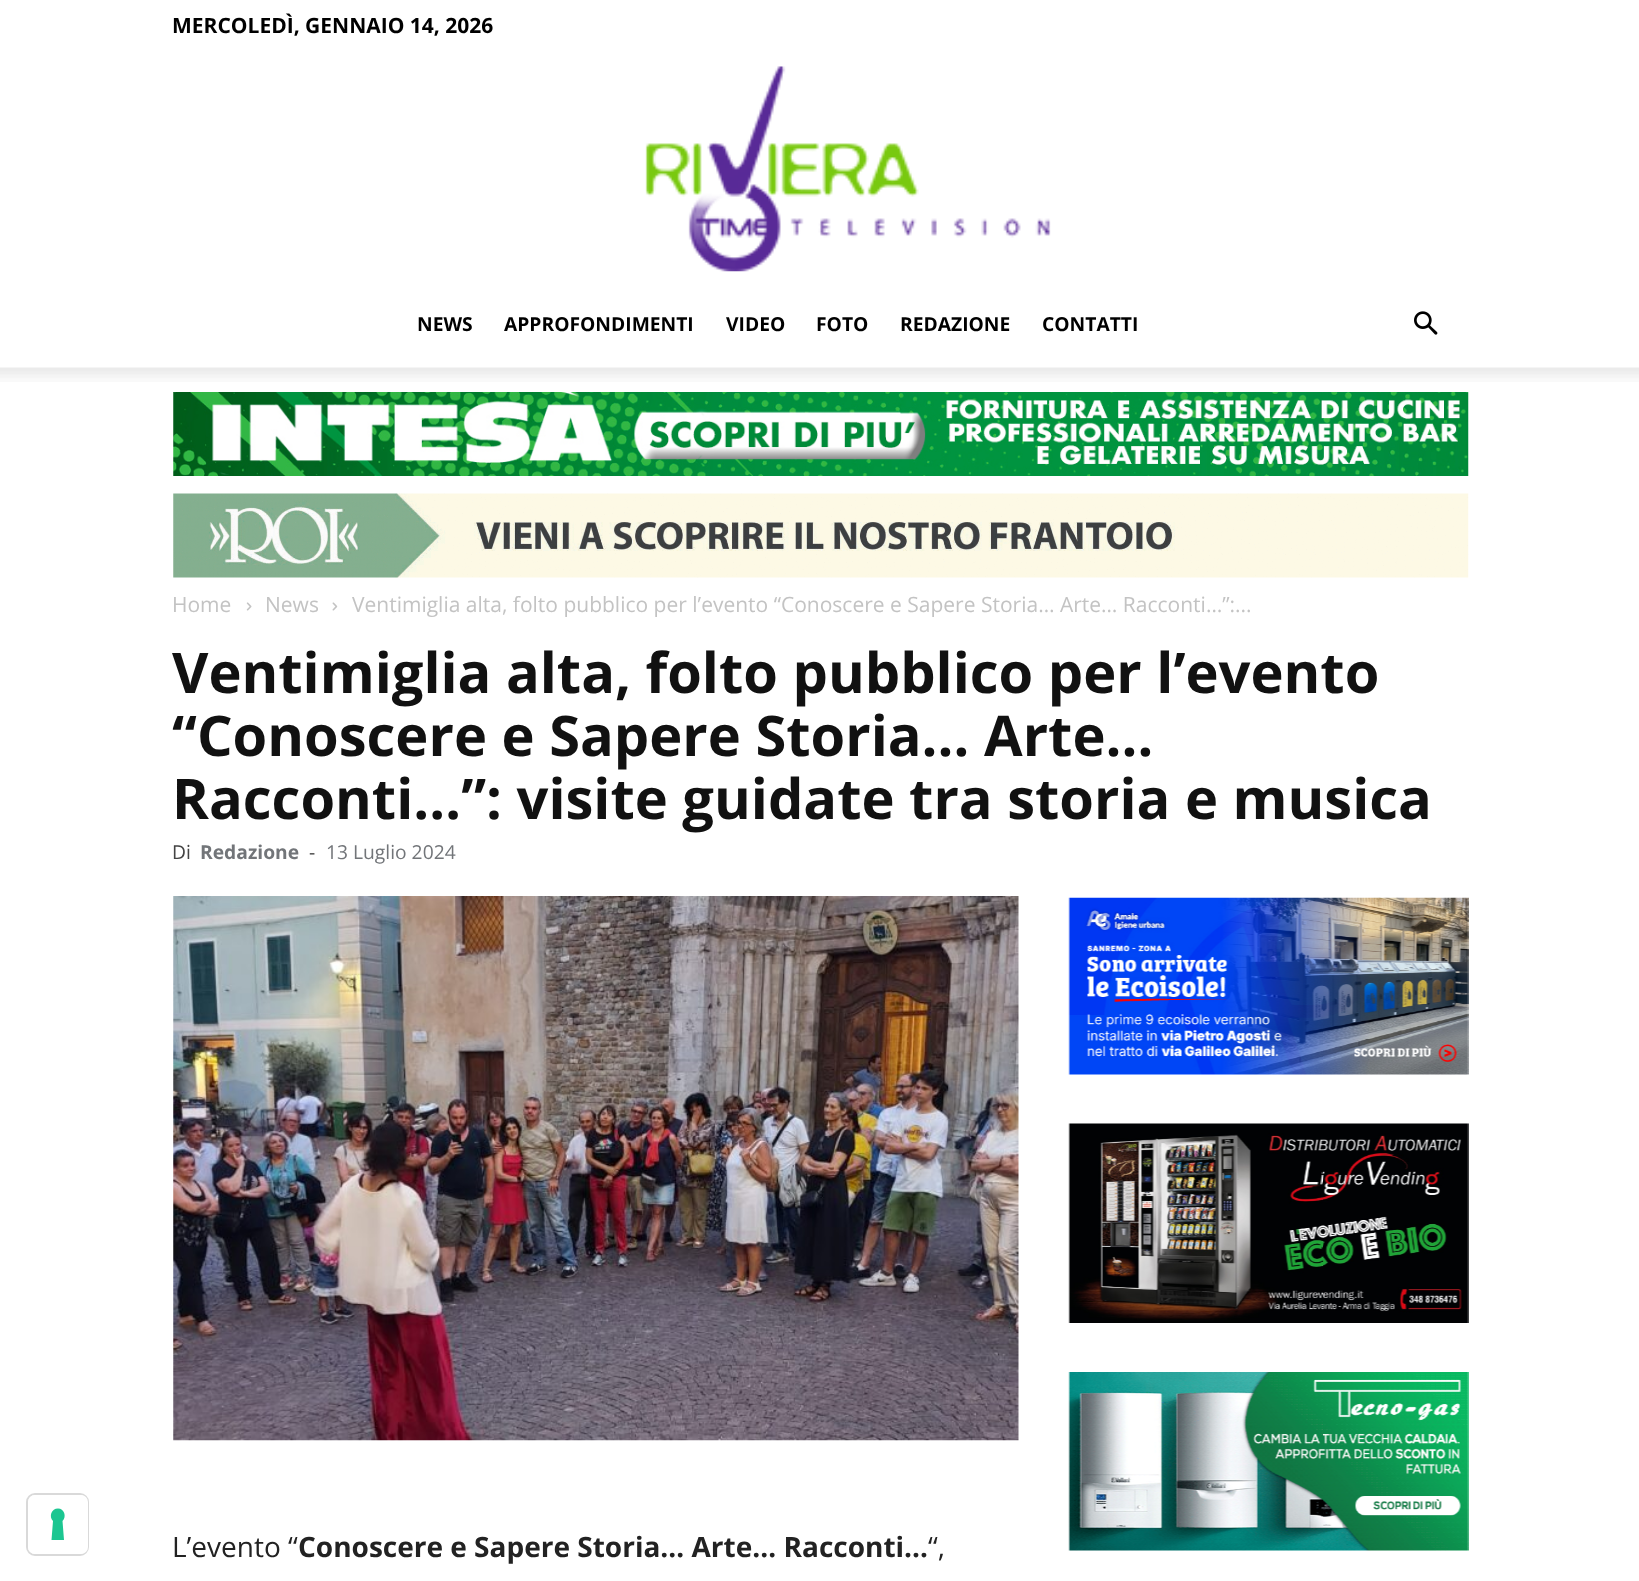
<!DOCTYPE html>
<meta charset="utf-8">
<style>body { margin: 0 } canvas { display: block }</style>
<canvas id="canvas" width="1639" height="1581"></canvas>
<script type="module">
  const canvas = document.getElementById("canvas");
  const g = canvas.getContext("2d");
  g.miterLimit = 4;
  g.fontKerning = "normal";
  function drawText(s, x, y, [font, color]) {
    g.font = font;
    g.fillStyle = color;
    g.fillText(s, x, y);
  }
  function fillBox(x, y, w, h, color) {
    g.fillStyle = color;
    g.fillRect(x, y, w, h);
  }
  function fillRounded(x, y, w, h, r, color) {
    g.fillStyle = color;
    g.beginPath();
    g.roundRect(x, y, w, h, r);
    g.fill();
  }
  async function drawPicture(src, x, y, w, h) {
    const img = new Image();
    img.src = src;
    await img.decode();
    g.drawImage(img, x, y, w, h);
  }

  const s1 = ["bold 21px Open Sans", "#000000"];
  const s2 = ["bold 19.25px Open Sans", "#000000"];
  const s3 = ["21px Open Sans", "#C3C3C3"];
  const s4 = ["bold 56px Open Sans", "#111111"];
  const s5 = ["19.25px Open Sans", "#444444"];
  const s6 = ["bold 19.25px Open Sans", "#727579"];
  const s7 = ["19.25px Open Sans", "#727579"];
  const s8 = ["28px Open Sans", "#222222"];
  const s9 = ["bold 28px Open Sans", "#222222"];

  fillBox(0, 0, 1639, 1581, "#FFFFFF");
  g.beginPath();
  g.roundRect(27, 1494, 61, 61, 8);
  g.strokeStyle = "#D9D9D9";
  g.lineWidth = 2;
  g.stroke();
  fillRounded(28, 1495, 60, 59, 7, "#FFFFFF");
  g.fillStyle = "#1CC691";
  g.beginPath();
  g.moveTo(58, 1508.5);
  g.bezierCurveTo(64, 1508.5, 67, 1516.5, 62.5, 1521);
  g.lineTo(64, 1540);
  g.lineTo(51.5, 1540);
  g.lineTo(53, 1521);
  g.bezierCurveTo(48.5, 1516.5, 51.5, 1508.5, 58, 1508.5);
  g.closePath();
  g.fill("evenodd");
  drawText("MERCOLEDÌ, GENNAIO 14, 2026", 172, 33, s1);
  await drawPicture("pic1.png", 645, 66, 406, 206);
  drawText("NEWS", 417, 331, s2);
  drawText("APPROFONDIMENTI", 504, 331, s2);
  drawText("VIDEO", 726, 331, s2);
  drawText("FOTO", 816, 331, s2);
  drawText("REDAZIONE", 900, 331, s2);
  drawText("CONTATTI", 1042, 331, s2);
  await drawPicture("pic2.png", 1414, 311, 24, 24);
  await drawPicture("pic3.png", 0, 367, 1639, 15);
  await drawPicture("pic4.png", 173, 392, 1296, 84);
  await drawPicture("pic5.png", 173, 493, 1296, 85);
  drawText("Home", 172, 612, s3);
  await drawPicture("pic6.png", 246, 602, 6, 9);
  drawText("News", 265, 612, s3);
  await drawPicture("pic7.png", 332, 602, 6, 9);
  drawText("Ventimiglia alta, folto pubblico per l’evento “Conoscere e Sapere Storia… Arte… Racconti…”:...", 352, 612, s3);
  drawText("Ventimiglia alta, folto pubblico per l’evento", 172, 693, s4);
  drawText("“Conoscere e Sapere Storia… Arte…", 172, 756, s4);
  drawText("Racconti…”: visite guidate tra storia e musica", 172, 819, s4);
  drawText("Di", 172, 859, s5);
  drawText("Redazione", 200, 859, s6);
  drawText("-", 309, 859, s5);
  drawText("13 Luglio 2024", 326, 859, s7);
  await drawPicture("pic8.png", 173, 896, 846, 545);
  drawText("L’evento “", 172, 1557, s8);
  drawText("Conoscere e Sapere Storia… Arte… Racconti…", 298, 1557, s9);
  drawText("“,", 928, 1557, s8);
  await drawPicture("pic9.png", 1068, 897, 401, 178);
  await drawPicture("pic10.png", 1068, 1123, 401, 200);
  await drawPicture("pic11.png", 1068, 1372, 401, 179);
</script>
